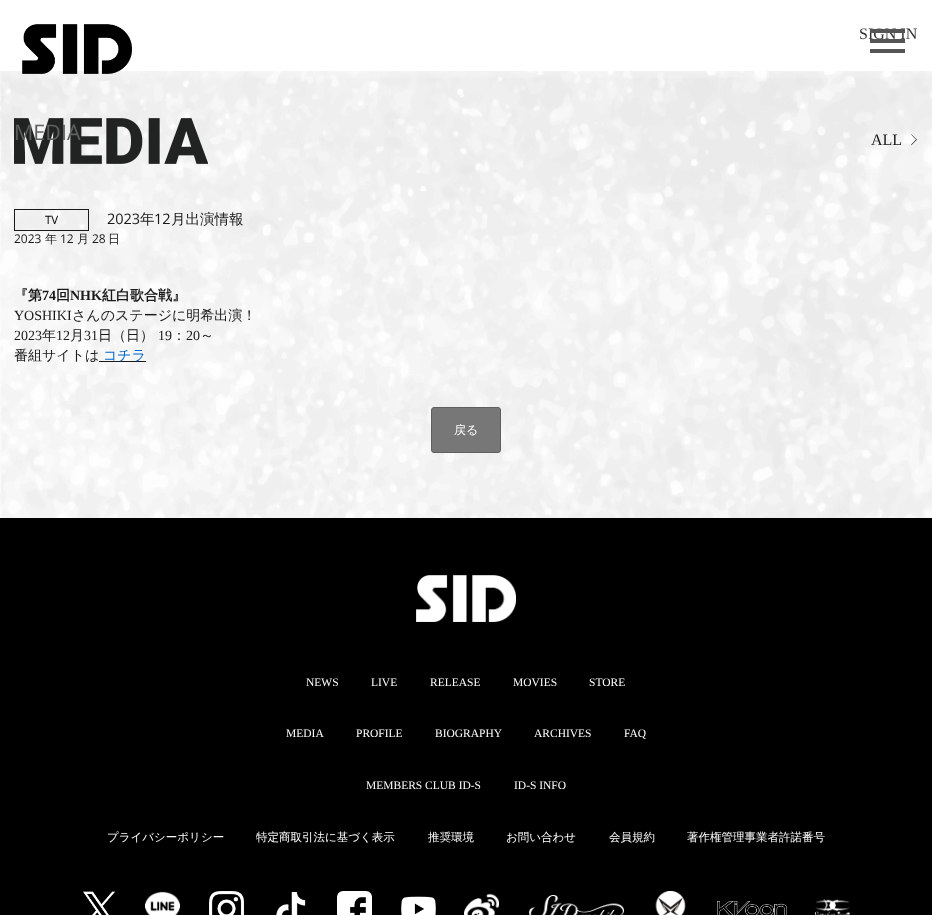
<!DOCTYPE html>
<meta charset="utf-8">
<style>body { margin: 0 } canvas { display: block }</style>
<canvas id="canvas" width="932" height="915"></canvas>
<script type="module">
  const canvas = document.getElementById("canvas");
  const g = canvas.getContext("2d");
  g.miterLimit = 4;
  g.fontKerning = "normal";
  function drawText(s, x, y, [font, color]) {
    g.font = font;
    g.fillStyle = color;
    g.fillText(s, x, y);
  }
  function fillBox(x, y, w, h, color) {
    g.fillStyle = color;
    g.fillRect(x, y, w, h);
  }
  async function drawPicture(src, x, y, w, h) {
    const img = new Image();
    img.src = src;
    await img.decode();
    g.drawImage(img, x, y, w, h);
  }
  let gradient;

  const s1 = ["16px Liberation Serif", "#333333"];
  const s2 = ["21.5px Open Sans", "#5E5F5F"];
  const s3 = ["16px Liberation Serif", "#191919"];
  const s4 = ["11.5px Open Sans", "#000000"];
  const s5 = ["14.5px Open Sans", "#191919"];
  const s6 = ["500 14.5px WenQuanYi Zen Hei", "#191919"];
  const s7 = ["12px Open Sans", "#191919"];
  const s8 = ["500 12px WenQuanYi Zen Hei", "#191919"];
  const s9 = ["bold 14px WenQuanYi Zen Hei", "#191919"];
  const s10 = ["bold 14px Liberation Serif", "#191919"];
  const s11 = ["14px Liberation Serif", "#191919"];
  const s12 = ["500 14px WenQuanYi Zen Hei", "#191919"];
  const s13 = ["500 14px WenQuanYi Zen Hei", "#0066CC"];
  const s14 = ["500 12px WenQuanYi Zen Hei", "#FFFFFF"];
  const s15 = ["11.5px Liberation Serif", "#FFFFFF"];
  const s16 = ["500 11.5px WenQuanYi Zen Hei", "#FFFFFF"];

  fillBox(0, 0, 932, 915, "#FFFFFF");
  await drawPicture("pic2.png", 0, 71, 932, 447);
  gradient = g.createLinearGradient(466, 0, 466, 82);
  gradient.addColorStop(0, "rgba(255, 255, 255, 0.95)");
  gradient.addColorStop(0.7, "rgba(255, 255, 255, 0.65)");
  gradient.addColorStop(1, "rgba(255, 255, 255, 0)");
  g.fillStyle = gradient;
  g.fillRect(0, 71, 932, 7);
  await drawPicture("pic1.png", 22, 24, 110, 50);
  drawText("SIGN IN", 859, 39, s1);
  fillBox(870, 29, 35, 4, "#555555");
  fillBox(870, 39, 35, 4, "#555555");
  fillBox(870, 49, 35, 4, "#555555");
  await drawPicture("pic3.png", 14, 118, 194, 46);
  drawText("MEDIA", 14, 140, s2);
  drawText("ALL", 871, 145, s3);
  await drawPicture("pic4.png", 911, 134, 6, 12);
  g.strokeStyle = "#191919";
  g.strokeRect(14.5, 209.5, 74, 21);
  drawText("TV", 45, 224, s4);
  drawText("2023", 107, 224, s5);
  drawText("年", 140, 224, s6);
  drawText("12", 154, 224, s5);
  drawText("月出演情報", 171, 224, s6);
  drawText("2023", 14, 243, s7);
  drawText("年", 45, 243, s8);
  drawText("12", 60, 243, s7);
  drawText("月", 77, 243, s8);
  drawText("28", 92, 243, s7);
  drawText("日", 108, 243, s8);
  drawText("『第", 14, 300, s9);
  drawText("74", 42, 300, s10);
  drawText("回", 56, 300, s9);
  drawText("NHK", 70, 300, s10);
  drawText("紅白歌合戦』", 102, 300, s9);
  drawText("YOSHIKI", 14, 320, s11);
  drawText("さんのステージに明希出演！", 72, 320, s12);
  drawText("2023", 14, 340, s11);
  drawText("年", 42, 340, s12);
  drawText("12", 56, 340, s11);
  drawText("月", 70, 340, s12);
  drawText("31", 84, 340, s11);
  drawText("日（日）", 98, 340, s12);
  drawText("19", 158, 340, s11);
  drawText("：", 172, 340, s12);
  drawText("20", 186, 340, s11);
  drawText("～", 200, 340, s12);
  drawText("番組サイトは", 14, 360, s12);
  fillBox(99, 361, 47, 1, "#191919");
  drawText("コチラ", 103, 360, s13);
  g.fillStyle = "#777777";
  g.beginPath();
  g.roundRect(431.5, 407.5, 69, 45, 2.5);
  g.fill();
  g.strokeStyle = "#5F5F5F";
  g.stroke();
  drawText("戻る", 454, 434, s14);
  fillBox(0, 518, 932, 397, "#000000");
  await drawPicture("pic5.png", 416, 575, 100, 47);
  drawText("NEWS", 306, 686, s15);
  drawText("LIVE", 371, 686, s15);
  drawText("RELEASE", 430, 686, s15);
  drawText("MOVIES", 513, 686, s15);
  drawText("STORE", 589, 686, s15);
  drawText("MEDIA", 286, 737, s15);
  drawText("PROFILE", 356, 737, s15);
  drawText("BIOGRAPHY", 435, 737, s15);
  drawText("ARCHIVES", 534, 737, s15);
  drawText("FAQ", 624, 737, s15);
  drawText("MEMBERS CLUB ID-S", 366, 789, s15);
  drawText("ID-S INFO", 514, 789, s15);
  drawText("プライバシーポリシー", 107, 841, s16);
  drawText("特定商取引法に基づく表示", 256, 841, s16);
  drawText("推奨環境", 428, 841, s16);
  drawText("お問い合わせ", 506, 841, s16);
  drawText("会員規約", 609, 841, s16);
  drawText("著作権管理事業者許諾番号", 687, 841, s16);
  await drawPicture("pic6.png", 83, 891, 32, 24);
  await drawPicture("pic7.png", 145, 891, 35, 24);
  await drawPicture("pic8.png", 209, 891, 35, 24);
  await drawPicture("pic9.png", 276, 892, 30, 23);
  await drawPicture("pic10.png", 337, 891, 35, 24);
  await drawPicture("pic11.png", 401, 896, 35, 19);
  await drawPicture("pic12.png", 464, 893, 35, 22);
  await drawPicture("pic13.png", 529, 895, 95, 20);
  await drawPicture("pic14.png", 655, 891, 31, 24);
  await drawPicture("pic15.png", 717, 901, 70, 14);
  await drawPicture("pic16.png", 815, 899, 35, 16);
</script>
